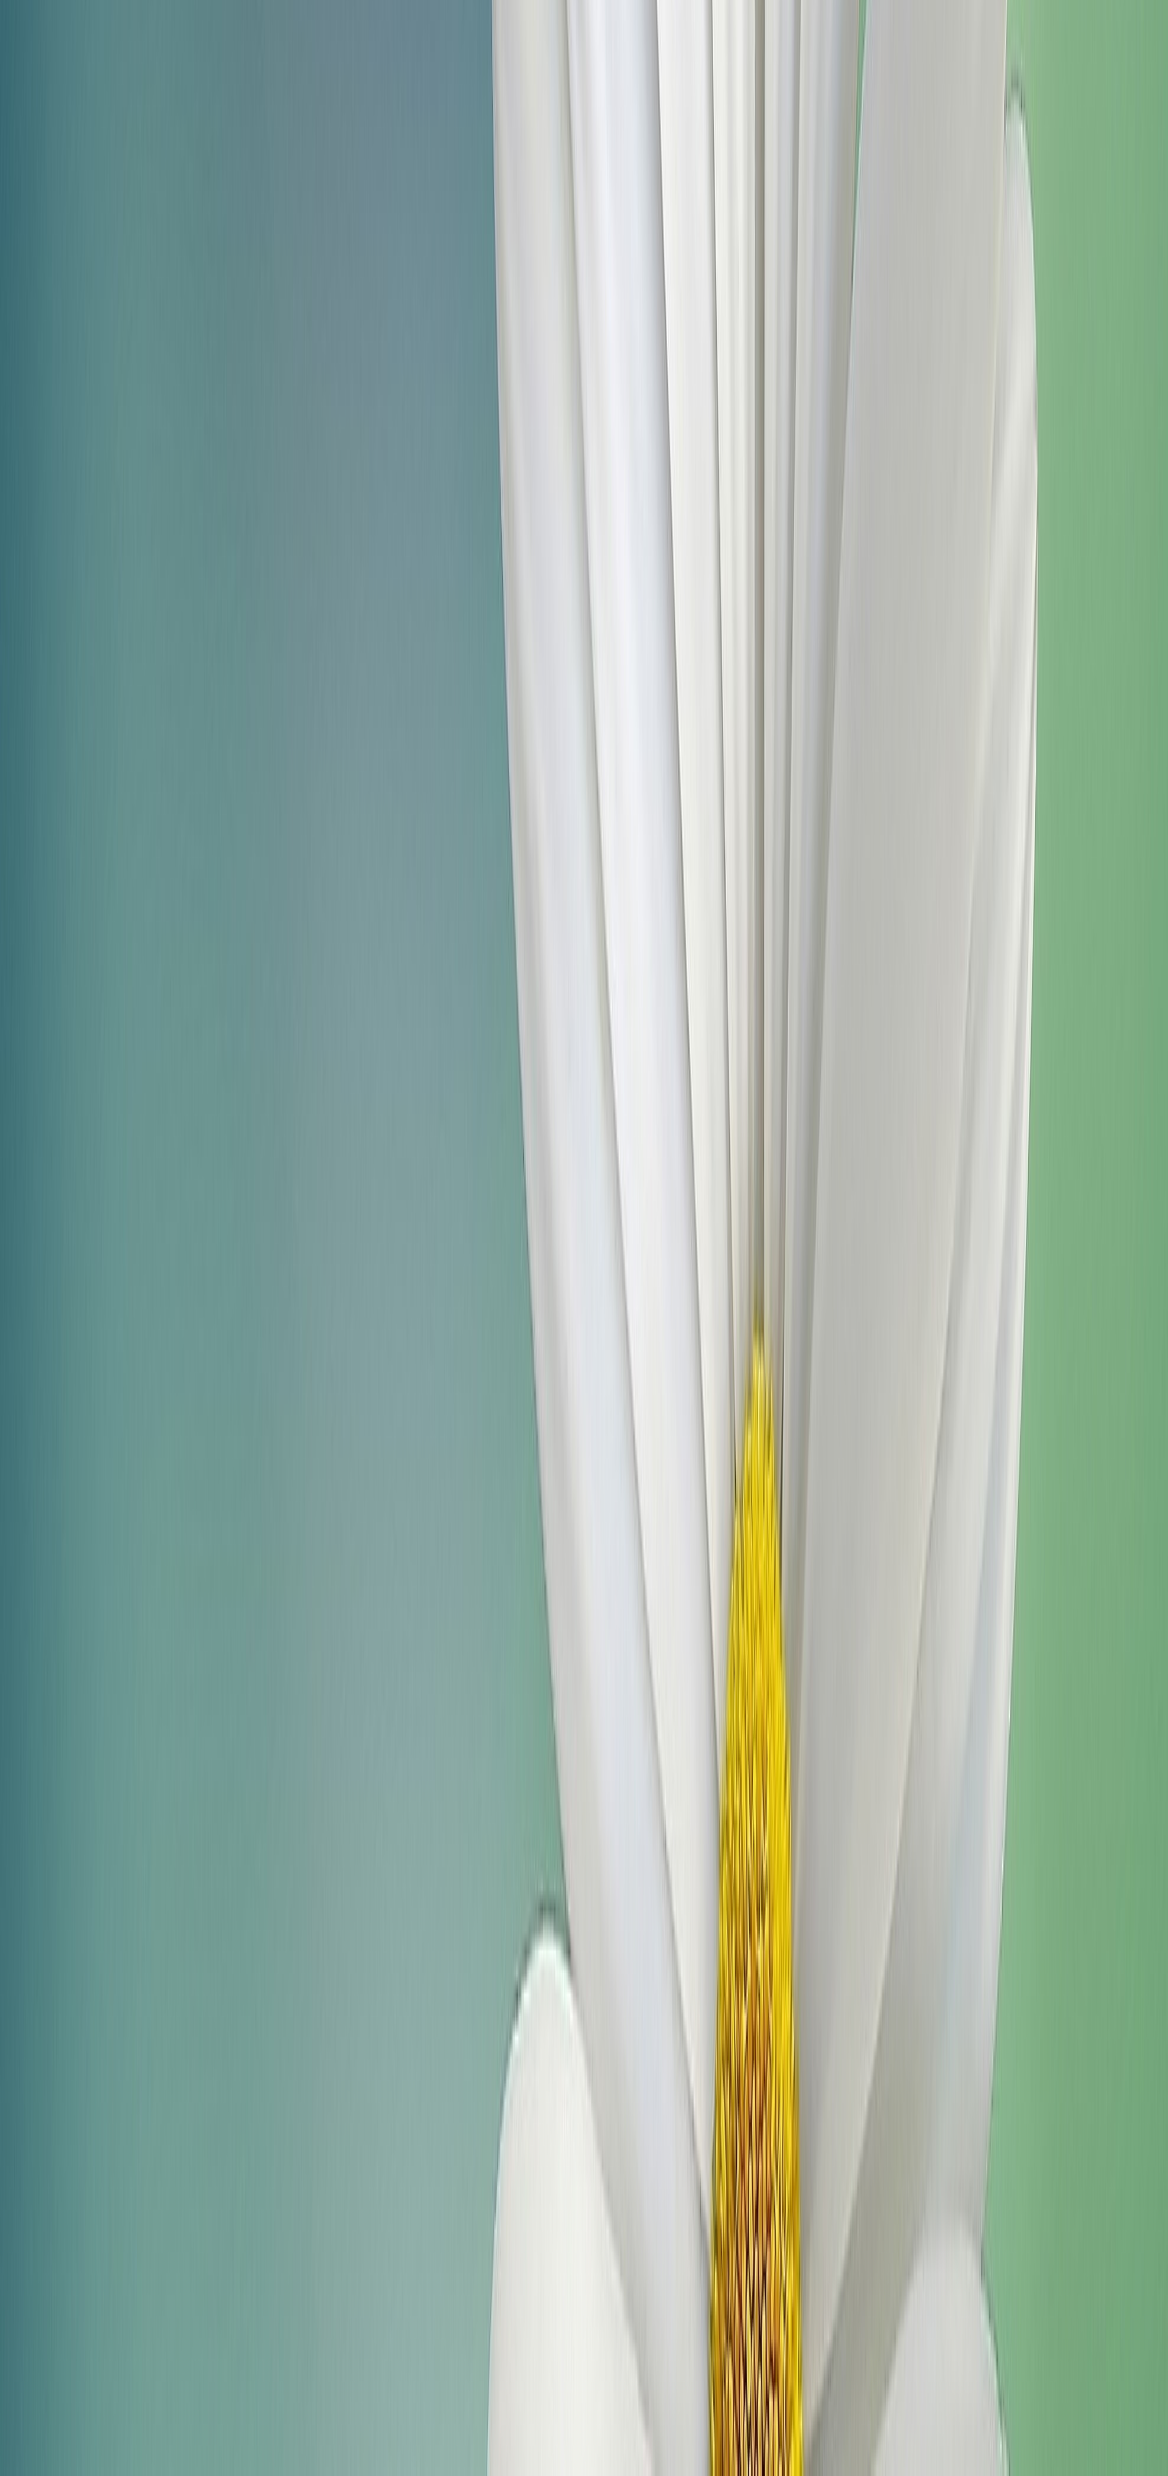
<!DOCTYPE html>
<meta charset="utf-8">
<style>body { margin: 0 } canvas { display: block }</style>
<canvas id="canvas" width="1168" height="2476"></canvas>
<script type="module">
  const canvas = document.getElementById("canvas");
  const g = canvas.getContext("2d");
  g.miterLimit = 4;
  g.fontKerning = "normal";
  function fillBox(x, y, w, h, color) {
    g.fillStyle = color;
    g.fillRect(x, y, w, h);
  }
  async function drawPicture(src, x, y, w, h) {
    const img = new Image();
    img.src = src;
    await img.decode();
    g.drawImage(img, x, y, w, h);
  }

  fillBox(0, 0, 1168, 2476, "#FFFFFF");
  await drawPicture("pic1.png", 0, 0, 1168, 2476);
</script>
